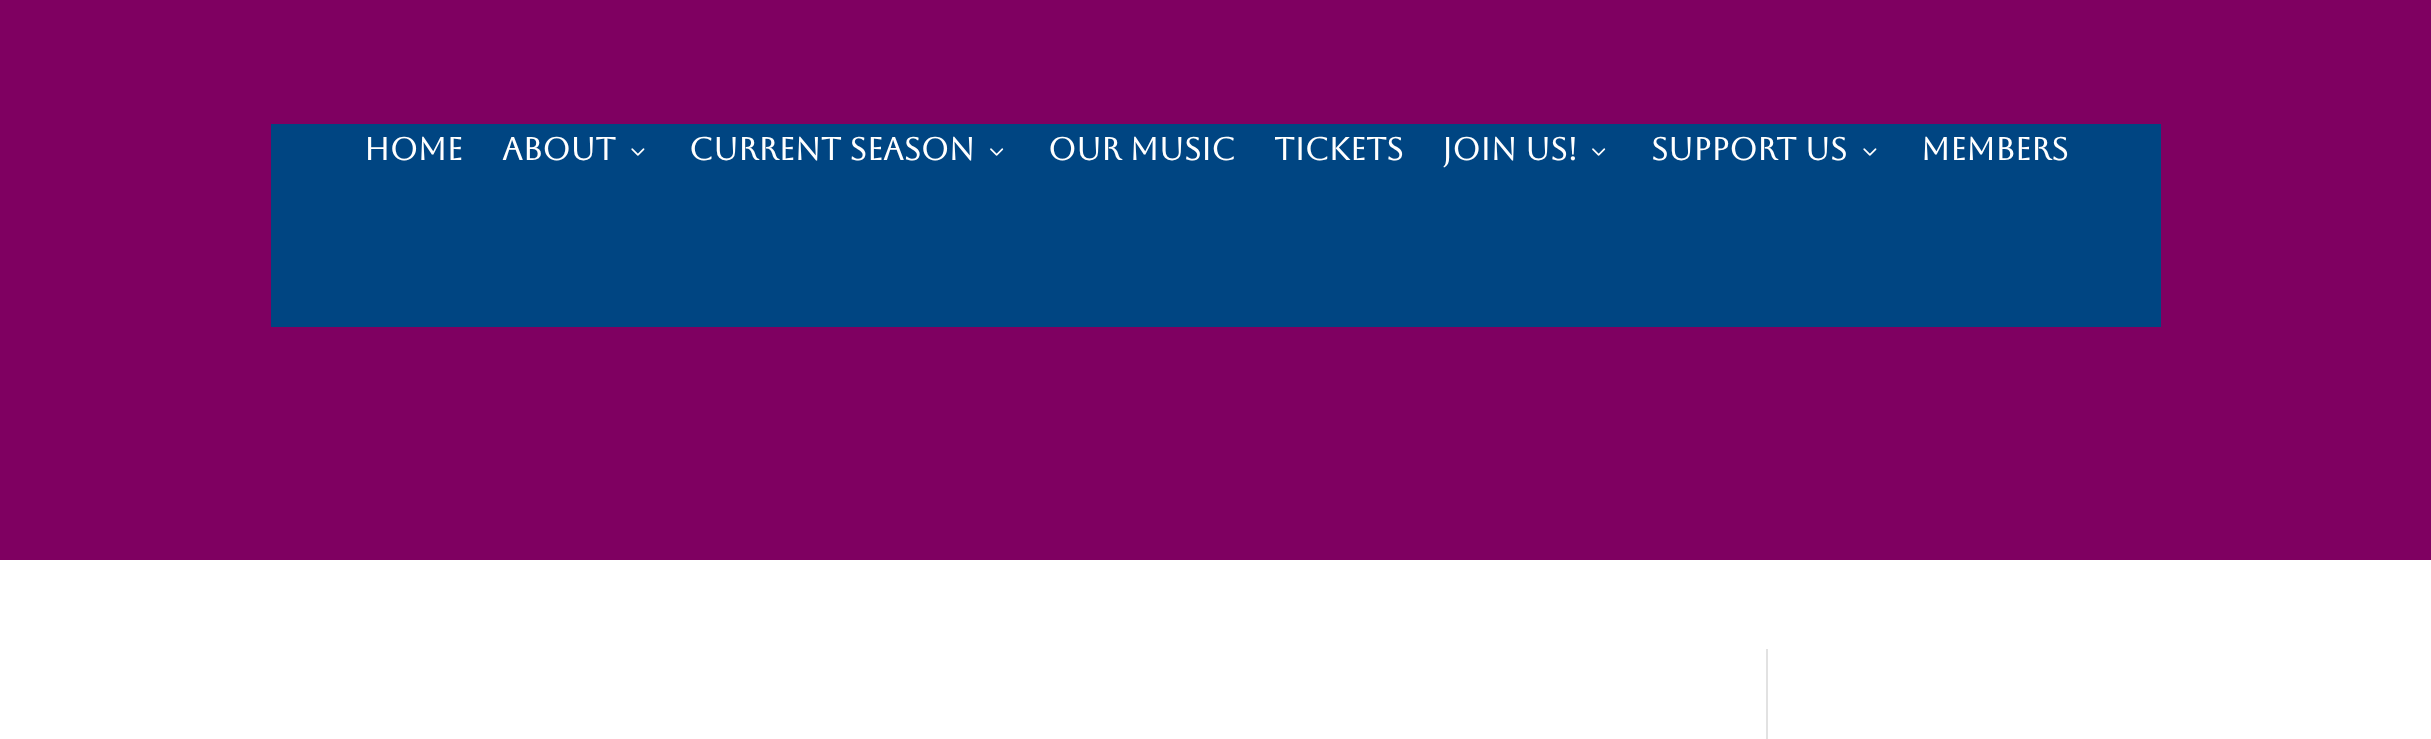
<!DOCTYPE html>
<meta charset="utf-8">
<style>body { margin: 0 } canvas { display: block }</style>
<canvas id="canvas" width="2431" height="739"></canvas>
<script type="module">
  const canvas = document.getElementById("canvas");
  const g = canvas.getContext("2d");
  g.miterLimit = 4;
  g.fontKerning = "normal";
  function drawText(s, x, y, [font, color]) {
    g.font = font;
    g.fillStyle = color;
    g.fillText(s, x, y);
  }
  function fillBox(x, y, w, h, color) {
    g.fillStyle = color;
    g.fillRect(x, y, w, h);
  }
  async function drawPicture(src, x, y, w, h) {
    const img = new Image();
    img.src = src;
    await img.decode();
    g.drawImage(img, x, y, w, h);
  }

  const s1 = ["bold 31.5px Aboreto", "#FFFFFF"];

  fillBox(0, 0, 2431, 739, "#FFFFFF");
  fillBox(0, 0, 2431, 560, "#7F0061");
  fillBox(271, 124, 1890, 203, "#004582");
  drawText("Home", 364, 160, s1);
  drawText("About", 502, 160, s1);
  await drawPicture("pic1.png", 631, 148, 14, 8);
  drawText("Current Season", 689, 160, s1);
  await drawPicture("pic2.png", 990, 148, 14, 8);
  drawText("Our Music", 1048, 160, s1);
  drawText("Tickets", 1274, 160, s1);
  drawText("Join Us!", 1442, 160, s1);
  await drawPicture("pic2.png", 1592, 148, 14, 8);
  drawText("Support Us", 1651, 160, s1);
  await drawPicture("pic1.png", 1863, 148, 14, 8);
  drawText("Members", 1921, 160, s1);
  fillBox(1766, 649, 2, 90, "#E2E2E2");
</script>
